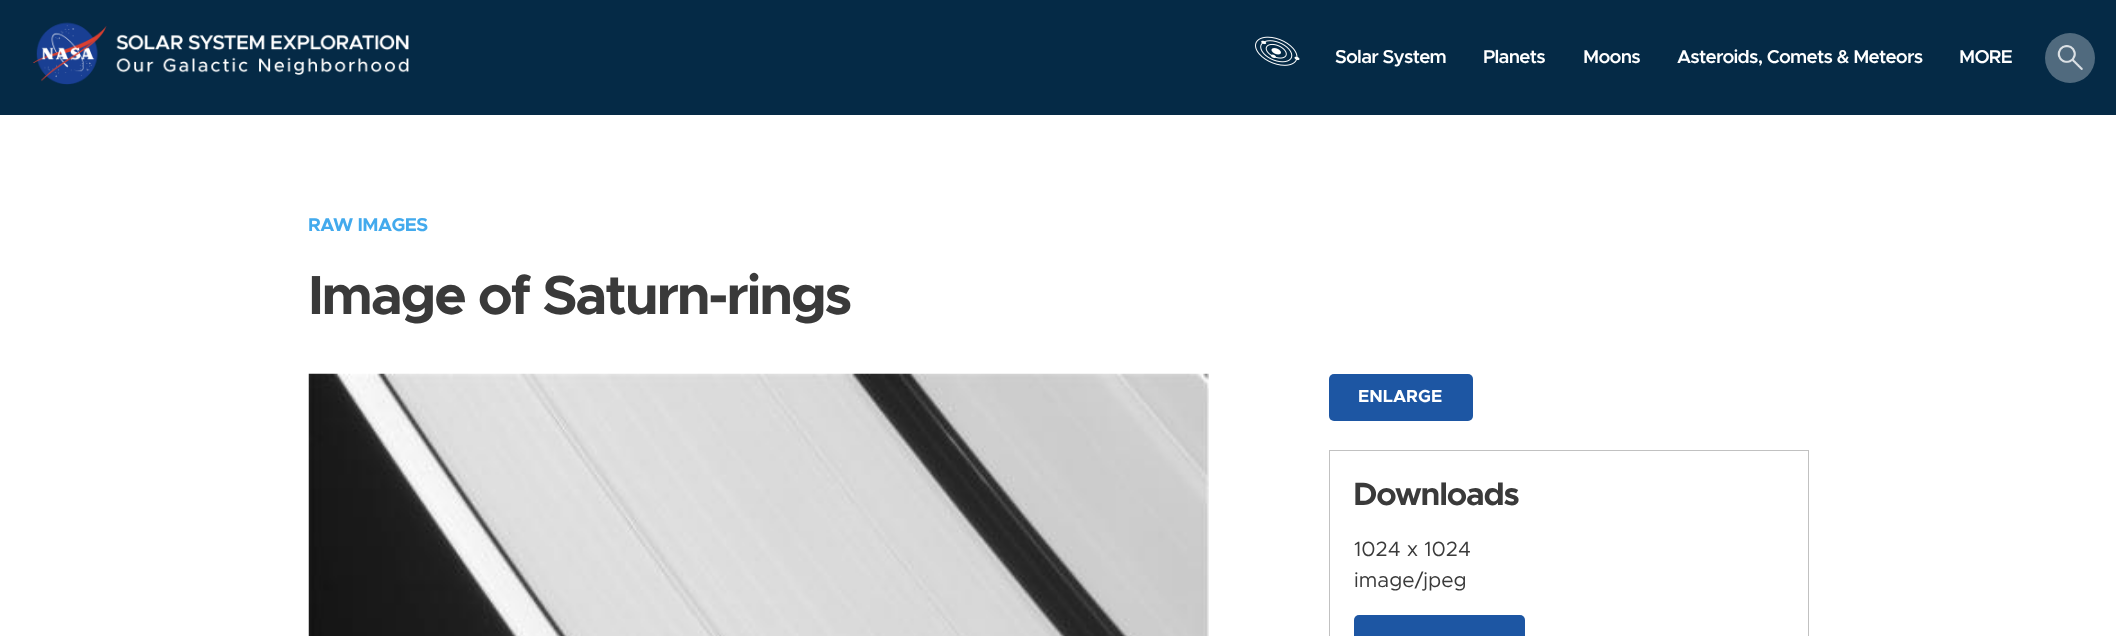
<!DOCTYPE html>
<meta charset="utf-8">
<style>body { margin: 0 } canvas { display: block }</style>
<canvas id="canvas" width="2116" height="636"></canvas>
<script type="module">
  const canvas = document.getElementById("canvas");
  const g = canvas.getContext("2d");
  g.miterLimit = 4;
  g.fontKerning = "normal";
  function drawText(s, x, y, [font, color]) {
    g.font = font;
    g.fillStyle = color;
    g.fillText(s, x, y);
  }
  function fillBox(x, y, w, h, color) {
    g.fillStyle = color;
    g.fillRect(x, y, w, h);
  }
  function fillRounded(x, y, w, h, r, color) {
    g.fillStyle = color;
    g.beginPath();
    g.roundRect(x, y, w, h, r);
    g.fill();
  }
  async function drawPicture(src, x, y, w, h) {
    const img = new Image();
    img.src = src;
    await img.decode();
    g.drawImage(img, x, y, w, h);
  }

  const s1 = ["600 18.75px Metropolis", "#FFFFFF"];
  const s2 = ["bold 18.75px Metropolis", "#43AAED"];
  const s3 = ["bold 55.25px Metropolis", "#3A3A3A"];
  const s4 = ["bold 17.5px Metropolis", "#FFFFFF"];
  const s5 = ["bold 32.25px Metropolis", "#3A3A3A"];
  const s6 = ["20.75px Metropolis", "#3A3A3A"];

  fillBox(0, 0, 2116, 636, "#FFFFFF");
  fillBox(0, 0, 2116, 115, "#052A46");
  await drawPicture("pic1.png", 33, 22, 376, 63);
  await drawPicture("pic2.png", 1255, 36, 45, 30);
  g.letterSpacing = "-0.75px";
  drawText("Solar System", 1335, 63, s1);
  drawText("Planets", 1483, 63, s1);
  drawText("Moons", 1583, 63, s1);
  drawText("Asteroids, Comets & Meteors", 1677, 63, s1);
  drawText("MORE", 1959, 63, s1);
  g.fillStyle = "#506A7E";
  g.beginPath();
  g.arc(2070, 58, 25, 0, Math.PI * 2);
  g.fill();
  await drawPicture("pic3.png", 2057, 45, 26, 25);
  g.letterSpacing = "-0.5px";
  drawText("RAW IMAGES", 308, 231, s2);
  g.letterSpacing = "-2.25px";
  drawText("Image of Saturn-rings", 308, 314, s3);
  await drawPicture("pic4.png", 308, 373, 901, 263);
  fillRounded(1329, 374, 144, 47, 5, "#1D56A3");
  g.letterSpacing = "0px";
  drawText("ENLARGE", 1358, 402, s4);
  g.strokeStyle = "#C1C1C1";
  g.strokeRect(1329.5, 450.5, 479, 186);
  g.letterSpacing = "-1.25px";
  drawText("Downloads", 1353, 505, s5);
  g.letterSpacing = "0px";
  drawText("1024 x 1024", 1354, 556, s6);
  drawText("image/jpeg", 1354, 587, s6);
  fillRounded(1354, 615, 171, 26, 5, "#1D56A3");
</script>
